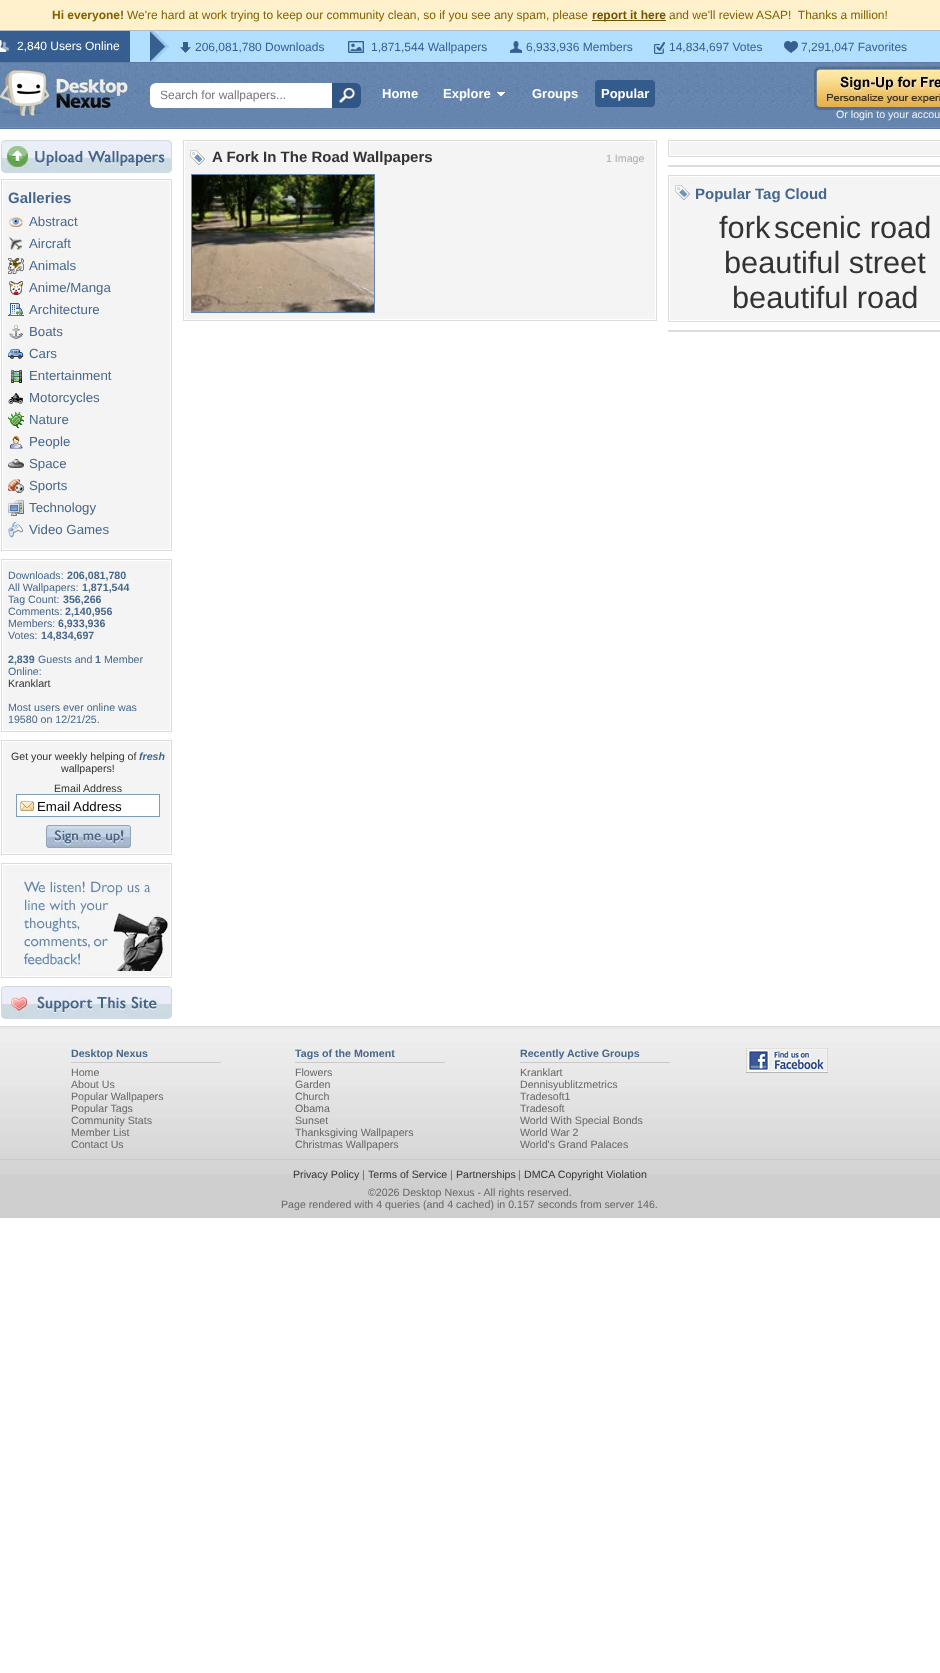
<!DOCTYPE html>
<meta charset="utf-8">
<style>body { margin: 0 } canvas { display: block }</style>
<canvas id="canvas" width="940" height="1673"></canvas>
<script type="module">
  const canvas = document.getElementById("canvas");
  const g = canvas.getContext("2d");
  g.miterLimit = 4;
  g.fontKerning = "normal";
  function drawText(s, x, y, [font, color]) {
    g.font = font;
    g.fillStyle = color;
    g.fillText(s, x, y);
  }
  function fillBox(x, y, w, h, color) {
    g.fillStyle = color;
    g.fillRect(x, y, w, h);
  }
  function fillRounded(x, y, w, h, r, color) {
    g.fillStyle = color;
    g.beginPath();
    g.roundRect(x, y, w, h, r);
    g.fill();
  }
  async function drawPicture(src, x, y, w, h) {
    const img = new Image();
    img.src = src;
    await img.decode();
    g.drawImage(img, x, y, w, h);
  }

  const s1 = ["bold 12px Liberation Sans", "#826200"];
  const s2 = ["12px Liberation Sans", "#826200"];
  const s3 = ["bold 12px Liberation Sans", "#705500"];
  const s4 = ["12px Liberation Sans", "#FFFFFF"];
  const s5 = ["12px Liberation Sans", "#375E90"];
  const s6 = ["12px Liberation Sans", "#757575"];
  const s7 = ["bold 13px Liberation Sans", "#FFFFFF"];
  const s8 = ["10.65px Liberation Sans", "#F4F4F4"];
  const s9 = ["bold 15px Liberation Sans", "#333333"];
  const s10 = ["10.65px Liberation Sans", "#AAAAAA"];
  const s11 = ["bold 15px Liberation Sans", "#46678A"];
  const s12 = ["13.25px Liberation Sans", "#46678A"];
  const s13 = ["10.65px Liberation Sans", "#46678A"];
  const s14 = ["bold 10.65px Liberation Sans", "#46678A"];
  const s15 = ["10.65px Liberation Sans", "#333333"];
  const s16 = ["italic bold 10.65px Liberation Sans", "#46678A"];
  const s17 = ["13.25px Liberation Sans", "#000000"];
  const s18 = ["30.75px Liberation Sans", "#333333"];
  const s19 = ["10.65px Liberation Sans", "#666666"];

  fillBox(0, 0, 940, 1673, "#FFFFFF");
  fillBox(0, 0, 940, 30, "#FFF1CB");
  drawText("Hi everyone!", 52, 19, s1);
  drawText("We're hard at work trying to keep our community clean, so if you see any spam, please", 127, 19, s2);
  fillBox(592, 20, 74, 1, "#705500");
  drawText("report it here", 592, 19, s3);
  drawText("and we'll review ASAP!  Thanks a million!", 669, 19, s2);
  fillBox(130, 31, 810, 31, "#B1DFFF");
  fillBox(0, 30, 940, 1, "#B6BAC0");
  fillBox(0, 31, 130, 31, "#375E90");
  await drawPicture("pic1.png", 0, 40, 9, 12);
  drawText("2,840 Users Online", 17, 50, s4);
  await drawPicture("pic2.png", 150, 31, 19, 31);
  await drawPicture("pic3.png", 180, 42, 11, 11);
  drawText("206,081,780 Downloads", 195, 51, s5);
  await drawPicture("pic4.png", 348, 41, 16, 12);
  drawText("1,871,544 Wallpapers", 371, 51, s5);
  await drawPicture("pic5.png", 510, 41, 12, 12);
  drawText("6,933,936 Members", 526, 51, s5);
  await drawPicture("pic6.png", 654, 42, 11, 12);
  drawText("14,834,697 Votes", 669, 51, s5);
  await drawPicture("pic7.png", 784, 41, 14, 12);
  drawText("7,291,047 Favorites", 801, 51, s5);
  await drawPicture("pic8.png", 0, 62, 940, 67);
  await drawPicture("pic9.png", 0, 70, 128, 46);
  g.fillStyle = "#FFFFFF";
  g.beginPath();
  g.roundRect(150, 83, 198, 25, [6, 0, 0, 6]);
  g.fill();
  drawText("Search for wallpapers...", 160, 99, s6);
  g.fillStyle = "#305686";
  g.beginPath();
  g.roundRect(332, 83, 29, 25, [0, 6, 6, 0]);
  g.fill();
  await drawPicture("pic10.png", 339, 88, 16, 15);
  drawText("Home", 382, 98, s7);
  drawText("Explore", 443, 98, s7);
  await drawPicture("pic11.png", 496, 92, 10, 5);
  drawText("Groups", 532, 98, s7);
  fillRounded(595, 80, 60, 27, 4, "#335B8B");
  drawText("Popular", 601, 98, s7);
  await drawPicture("pic12.png", 814, 66, 126, 44);
  drawText("Or login to your accou", 836, 118, s8);
  g.strokeStyle = "#DCDCDC";
  g.strokeRect(183.5, 140.5, 473, 180);
  fillBox(185, 142, 470, 177, "#F4F4F4");
  await drawPicture("pic13.png", 190, 150, 15, 16);
  drawText("A Fork In The Road Wallpapers", 212, 162, s9);
  drawText("1 Image", 606, 162, s10);
  g.strokeStyle = "#6485AE";
  g.strokeRect(191.5, 174.5, 183, 138);
  await drawPicture("pic14.png", 192, 175, 182, 137);
  await drawPicture("pic15.png", 1, 140, 171, 33);
  g.strokeStyle = "#DCDCDC";
  g.strokeRect(1.5, 179.5, 170, 371);
  fillBox(3, 181, 167, 368, "#F4F4F4");
  drawText("Galleries", 8, 203, s11);
  await drawPicture("pic16.png", 9, 217, 14, 10);
  drawText("Abstract", 29, 226, s12);
  await drawPicture("pic17.png", 9, 237, 13, 13);
  drawText("Aircraft", 29, 248, s12);
  await drawPicture("pic18.png", 8, 258, 16, 16);
  drawText("Animals", 29, 270, s12);
  await drawPicture("pic19.png", 9, 281, 14, 14);
  drawText("Anime/Manga", 29, 292, s12);
  await drawPicture("pic20.png", 8, 303, 16, 13);
  drawText("Architecture", 29, 314, s12);
  await drawPicture("pic21.png", 9, 325, 14, 14);
  drawText("Boats", 29, 336, s12);
  await drawPicture("pic22.png", 8, 349, 16, 10);
  drawText("Cars", 29, 358, s12);
  await drawPicture("pic23.png", 11, 370, 11, 13);
  drawText("Entertainment", 29, 380, s12);
  await drawPicture("pic24.png", 8, 392, 16, 12);
  drawText("Motorcycles", 29, 402, s12);
  await drawPicture("pic25.png", 8, 412, 16, 16);
  drawText("Nature", 29, 424, s12);
  await drawPicture("pic26.png", 10, 436, 13, 13);
  drawText("People", 29, 446, s12);
  await drawPicture("pic27.png", 8, 459, 16, 9);
  drawText("Space", 29, 468, s12);
  await drawPicture("pic28.png", 8, 479, 16, 14);
  drawText("Sports", 29, 490, s12);
  await drawPicture("pic29.png", 8, 500, 16, 16);
  drawText("Technology", 29, 512, s12);
  await drawPicture("pic30.png", 8, 522, 15, 16);
  drawText("Video Games", 29, 534, s12);
  g.strokeRect(1.5, 559.5, 170, 172);
  fillBox(3, 561, 167, 169, "#F4F4F4");
  drawText("Downloads:", 8, 579, s13);
  drawText("206,081,780", 67, 579, s14);
  drawText("All Wallpapers:", 8, 591, s13);
  drawText("1,871,544", 82, 591, s14);
  drawText("Tag Count:", 8, 603, s13);
  drawText("356,266", 63, 603, s14);
  drawText("Comments:", 8, 615, s13);
  drawText("2,140,956", 65, 615, s14);
  drawText("Members:", 8, 627, s13);
  drawText("6,933,936", 58, 627, s14);
  drawText("Votes:", 8, 639, s13);
  drawText("14,834,697", 41, 639, s14);
  drawText("2,839", 8, 663, s14);
  drawText("Guests and", 38, 663, s13);
  drawText("1", 95, 663, s14);
  drawText("Member", 104, 663, s13);
  drawText("Online:", 8, 675, s13);
  drawText("Kranklart", 8, 687, s15);
  drawText("Most users ever online was", 8, 711, s13);
  drawText("19580 on 12/21/25.", 8, 723, s13);
  g.strokeRect(1.5, 740.5, 170, 114);
  fillBox(3, 742, 167, 111, "#F4F4F4");
  drawText("Get your weekly helping of", 11, 760, s15);
  drawText("fresh", 139, 760, s16);
  drawText("wallpapers!", 61, 772, s15);
  drawText("Email Address", 54, 792, s15);
  fillBox(17, 795, 142, 21, "#FFFFFF");
  await drawPicture("pic31.png", 17, 801, 17, 10);
  g.strokeStyle = "#7F9DB9";
  g.strokeRect(16.5, 794.5, 143, 22);
  drawText("Email Address", 37, 811, s17);
  await drawPicture("pic32.png", 46, 825, 85, 23);
  g.strokeStyle = "#DCDCDC";
  g.strokeRect(1.5, 863.5, 170, 114);
  fillBox(3, 865, 167, 111, "#F4F4F4");
  await drawPicture("pic33.png", 21, 880, 147, 91);
  await drawPicture("pic34.png", 1, 986, 171, 33);
  g.strokeRect(668.5, 140.5, 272, 16);
  fillBox(670, 142, 270, 13, "#F4F4F4");
  fillBox(668, 165, 272, 2, "#DCDCDC");
  g.strokeRect(668.5, 175.5, 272, 146);
  fillBox(670, 177, 270, 143, "#F4F4F4");
  await drawPicture("pic13.png", 675, 185, 15, 16);
  drawText("Popular Tag Cloud", 695, 199, s11);
  drawText("fork", 719, 238, s18);
  drawText("scenic road", 774, 238, s18);
  drawText("beautiful street", 724, 273, s18);
  drawText("beautiful road", 732, 308, s18);
  fillBox(668, 330, 272, 2, "#DCDCDC");
  fillBox(0, 1174, 940, 44, "#CFCFCF");
  await drawPicture("pic35.png", 0, 1026, 940, 148);
  drawText("Desktop Nexus", 71, 1057, s14);
  fillBox(71, 1062, 150, 1, "#C9C9C9");
  drawText("Home", 71, 1076, s19);
  drawText("About Us", 71, 1088, s19);
  drawText("Popular Wallpapers", 71, 1100, s19);
  drawText("Popular Tags", 71, 1112, s19);
  drawText("Community Stats", 71, 1124, s19);
  drawText("Member List", 71, 1136, s19);
  drawText("Contact Us", 71, 1148, s19);
  drawText("Tags of the Moment", 295, 1057, s14);
  fillBox(295, 1062, 150, 1, "#C9C9C9");
  drawText("Flowers", 295, 1076, s19);
  drawText("Garden", 295, 1088, s19);
  drawText("Church", 295, 1100, s19);
  drawText("Obama", 295, 1112, s19);
  drawText("Sunset", 295, 1124, s19);
  drawText("Thanksgiving Wallpapers", 295, 1136, s19);
  drawText("Christmas Wallpapers", 295, 1148, s19);
  drawText("Recently Active Groups", 520, 1057, s14);
  fillBox(520, 1062, 150, 1, "#C9C9C9");
  drawText("Kranklart", 520, 1076, s19);
  drawText("Dennisyublitzmetrics", 520, 1088, s19);
  drawText("Tradesoft1", 520, 1100, s19);
  drawText("Tradesoft", 520, 1112, s19);
  drawText("World With Special Bonds", 520, 1124, s19);
  drawText("World War 2", 520, 1136, s19);
  drawText("World's Grand Palaces", 520, 1148, s19);
  await drawPicture("pic36.png", 746, 1048, 82, 25);
  fillBox(0, 1159, 940, 1, "#C9C9C9");
  drawText("Privacy Policy", 293, 1178, s15);
  drawText("|", 362, 1178, s19);
  drawText("Terms of Service", 368, 1178, s15);
  drawText("|", 450, 1178, s19);
  drawText("Partnerships", 456, 1178, s15);
  drawText("|", 518, 1178, s19);
  drawText("DMCA Copyright Violation", 524, 1178, s15);
  drawText("©2026 Desktop Nexus - All rights reserved.", 368, 1196, s19);
  drawText("Page rendered with 4 queries (and 4 cached) in 0.157 seconds from server 146.", 281, 1208, s19);
</script>
